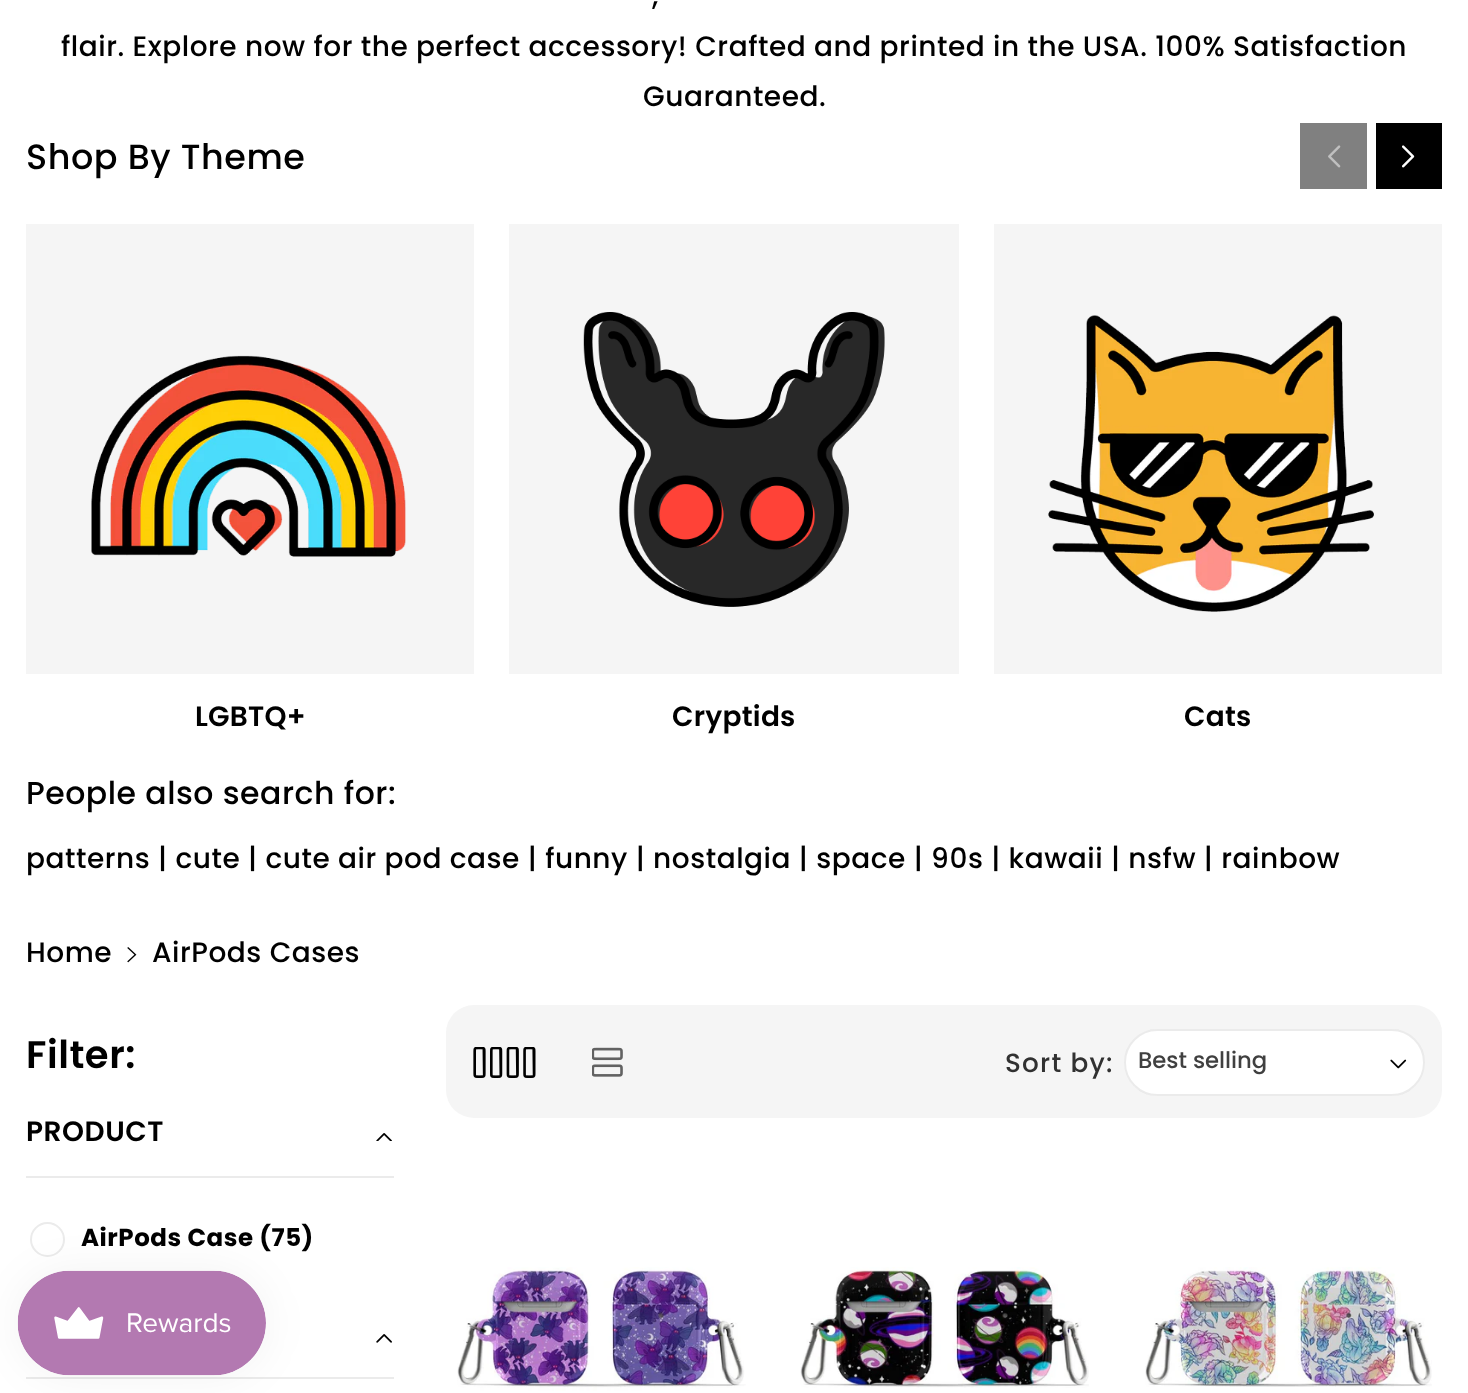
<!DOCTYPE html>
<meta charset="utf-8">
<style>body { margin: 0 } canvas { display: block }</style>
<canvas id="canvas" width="1468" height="1393"></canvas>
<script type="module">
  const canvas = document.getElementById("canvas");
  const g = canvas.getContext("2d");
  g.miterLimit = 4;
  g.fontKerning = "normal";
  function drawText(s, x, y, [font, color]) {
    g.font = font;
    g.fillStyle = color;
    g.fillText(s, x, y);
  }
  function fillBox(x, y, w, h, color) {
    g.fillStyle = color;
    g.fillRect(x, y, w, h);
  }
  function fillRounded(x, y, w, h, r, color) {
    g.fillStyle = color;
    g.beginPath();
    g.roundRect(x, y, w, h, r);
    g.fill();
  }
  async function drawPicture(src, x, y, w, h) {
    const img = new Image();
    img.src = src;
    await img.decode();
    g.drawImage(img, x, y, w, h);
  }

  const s1 = ["500 28px Poppins", "#000000"];
  const s2 = ["500 35px Poppins", "#000000"];
  const s3 = ["600 28px Poppins", "#000000"];
  const s4 = ["500 31.5px Poppins", "#000000"];
  const s5 = ["600 38.5px Poppins", "#000000"];
  const s6 = ["bold 24.5px Poppins", "#000000"];
  const s7 = ["500 26.25px Poppins", "#313131"];
  const s8 = ["500 22.75px Poppins", "#404040"];

  fillBox(0, 0, 1468, 1393, "#FFFFFF");
  g.letterSpacing = "0.53px";
  drawText(",", 652, 5, s1);
  drawText("flair. Explore now for the perfect accessory! Crafted and printed in the USA. 100% Satisfaction", 61, 56, s1);
  drawText("Guaranteed.", 643, 106, s1);
  drawText("Shop By Theme", 26, 169, s2);
  fillBox(1300, 123, 67, 66, "#808080");
  await drawPicture("pic1.png", 1328, 145, 13, 23);
  fillBox(1376, 123, 66, 66, "#000000");
  await drawPicture("pic2.png", 1402, 145, 13, 23);
  fillBox(26, 224, 448, 450, "#F5F5F5");
  await drawPicture("pic3.png", 91, 355, 315, 202);
  g.letterSpacing = "0.25px";
  drawText("LGBTQ+", 195, 726, s3);
  fillBox(509, 224, 450, 450, "#F5F5F5");
  await drawPicture("pic4.png", 583, 312, 302, 295);
  drawText("Cryptids", 672, 726, s3);
  fillBox(994, 224, 448, 450, "#F5F5F5");
  await drawPicture("pic5.png", 1048, 315, 326, 297);
  drawText("Cats", 1184, 726, s3);
  g.letterSpacing = "0.53px";
  drawText("People also search for:", 26, 804, s4);
  drawText("patterns | cute | cute air pod case | funny | nostalgia | space | 90s | kawaii | nsfw | rainbow", 26, 868, s1);
  drawText("Home", 26, 962, s1);
  await drawPicture("pic6.png", 127, 947, 10, 16);
  drawText("AirPods Cases", 152, 962, s1);
  drawText("Filter:", 26, 1068, s5);
  fillBox(26, 1176, 368, 2, "#EBEBEB");
  drawText("PRODUCT", 26, 1141, s3);
  await drawPicture("pic7.png", 376, 1133, 16, 8);
  g.beginPath();
  g.arc(47.5, 1239.5, 16.5, 0, Math.PI * 2);
  g.strokeStyle = "#EBEBEB";
  g.lineWidth = 2;
  g.stroke();
  drawText("AirPods Case (75)", 81, 1246, s6);
  fillBox(26, 1377, 368, 2, "#EBEBEB");
  await drawPicture("pic8.png", 376, 1334, 16, 9);
  await drawPicture("pic9.png", 457, 1267, 289, 124);
  await drawPicture("pic10.png", 800, 1267, 289, 121);
  await drawPicture("pic11.png", 1145, 1267, 287, 120);
  fillRounded(446, 1005, 996, 113, 28, "#F5F5F5");
  await drawPicture("pic12.png", 473, 1047, 63, 31);
  await drawPicture("pic13.png", 592, 1047, 31, 30);
  g.letterSpacing = "1.25px";
  drawText("Sort by:", 1005, 1072, s7);
  fillRounded(1124, 1029, 301, 67, 33.5, "#FFFFFF");
  g.beginPath();
  g.roundRect(1125, 1030, 299, 65, 32.5);
  g.strokeStyle = "rgba(0, 0, 0, 0.08)";
  g.stroke();
  g.letterSpacing = "0px";
  drawText("Best selling", 1138, 1068, s8);
  await drawPicture("pic14.png", 1390, 1059, 17, 10);
  g.fillStyle = "rgba(0, 0, 0, 0.05)";
  g.filter = "blur(22px)";
  g.beginPath();
  g.roundRect(18, 1271, 248, 105, 52.5);
  g.fill();
  g.filter = "none";
  await drawPicture("pic15.png", 17, 1270, 249, 106);
</script>
